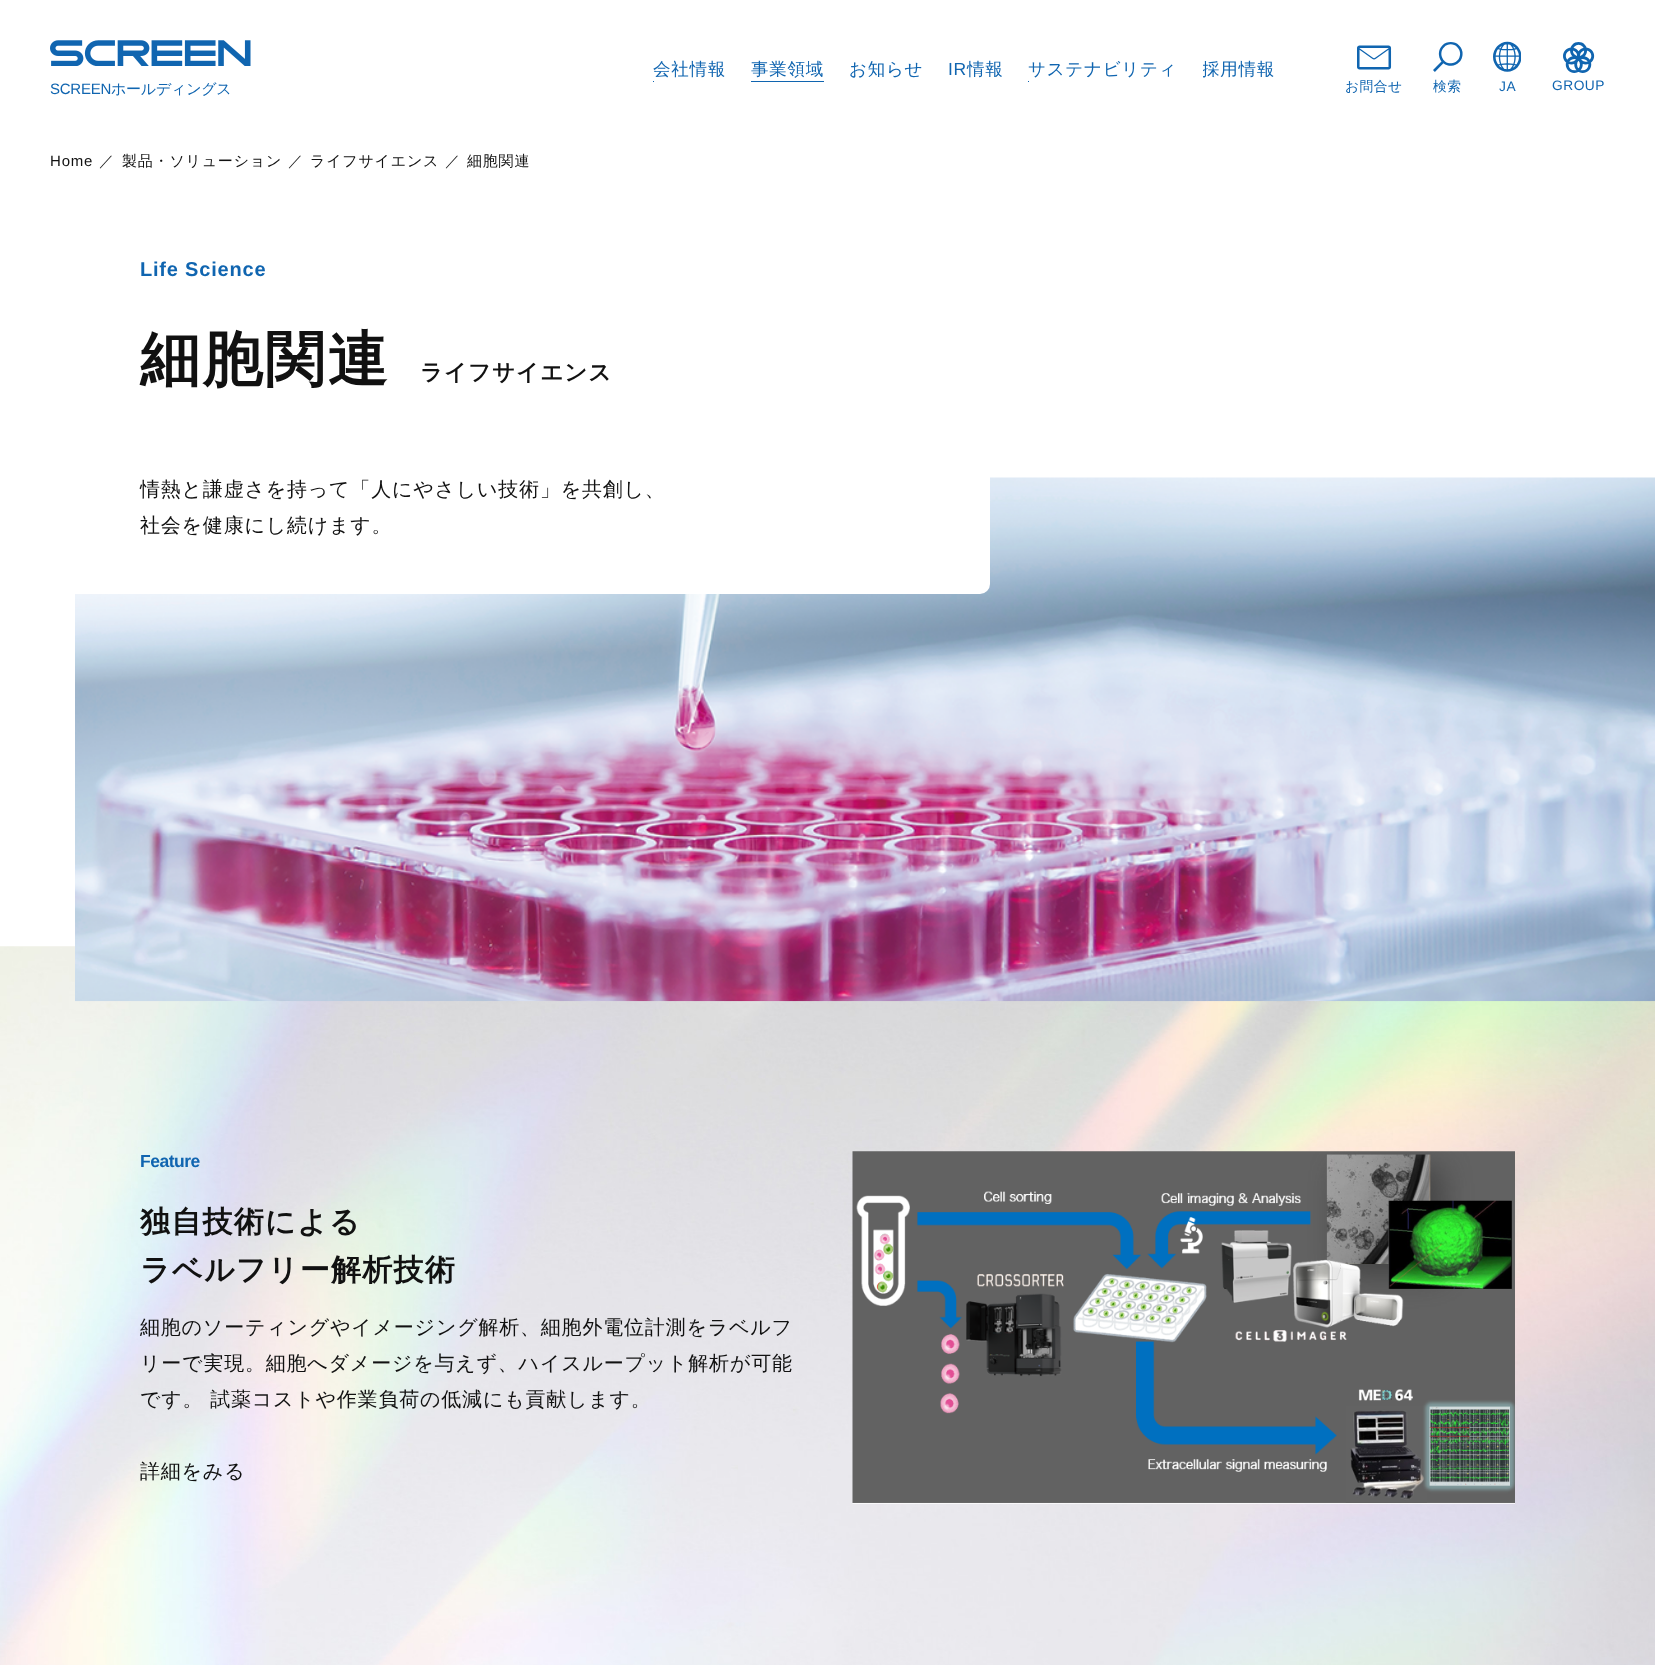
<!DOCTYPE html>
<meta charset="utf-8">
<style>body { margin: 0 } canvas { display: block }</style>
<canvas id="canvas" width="1655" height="1665"></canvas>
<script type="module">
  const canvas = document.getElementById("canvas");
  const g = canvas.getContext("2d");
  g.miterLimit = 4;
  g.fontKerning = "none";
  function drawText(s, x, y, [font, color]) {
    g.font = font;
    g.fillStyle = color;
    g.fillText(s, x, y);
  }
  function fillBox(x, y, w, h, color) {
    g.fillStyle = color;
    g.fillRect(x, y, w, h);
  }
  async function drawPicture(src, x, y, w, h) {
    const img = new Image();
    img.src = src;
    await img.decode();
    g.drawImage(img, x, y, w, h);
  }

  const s1 = ["15px Liberation Sans", "#1065B0"];
  const s2 = ["500 15px WenQuanYi Zen Hei", "#1065B0"];
  const s3 = ["500 17.5px WenQuanYi Zen Hei", "#1065B0"];
  const s4 = ["17.5px Liberation Sans", "#1065B0"];
  const s5 = ["24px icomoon", "#1065B0"];
  const s6 = ["500 13.75px WenQuanYi Zen Hei", "#1065B0"];
  const s7 = ["30px icomoon", "#1065B0"];
  const s8 = ["13.75px Liberation Sans", "#1065B0"];
  const s9 = ["31px icomoon", "#1065B0"];
  const s10 = ["15px Liberation Sans", "#111111"];
  const s11 = ["500 15px WenQuanYi Zen Hei", "#111111"];
  const s12 = ["bold 20px Liberation Sans", "#1065B0"];
  const s13 = ["bold 60px WenQuanYi Zen Hei", "#111111"];
  const s14 = ["bold 22.5px WenQuanYi Zen Hei", "#111111"];
  const s15 = ["500 20px WenQuanYi Zen Hei", "#111111"];
  const s16 = ["bold 17.5px Liberation Sans", "#1065B0"];
  const s17 = ["bold 30px WenQuanYi Zen Hei", "#111111"];

  fillBox(0, 0, 1655, 1665, "#FFFFFF");
  await drawPicture("pic1.png", 50, 40, 201, 26);
  g.letterSpacing = "-0.25px";
  drawText("SCREEN", 50, 94, s1);
  drawText("ホールディングス", 111, 94, s2);
  g.letterSpacing = "0.75px";
  drawText("会社情報", 653, 75, s3);
  fillBox(653, 81, 1, 1, "#1065B0");
  drawText("事業領域", 751, 75, s3);
  fillBox(751, 81, 73, 1, "#1065B0");
  drawText("お知らせ", 849, 75, s3);
  drawText("IR", 948, 75, s4);
  drawText("情報", 967, 75, s3);
  drawText("サステナビリティ", 1028, 75, s3);
  fillBox(1028, 81, 1, 1, "#1065B0");
  g.save();
  g.beginPath();
  g.rect(1203, 54, 72, 29);
  g.clip();
  drawText("採用情報", 1202, 75, s3);
  g.restore();
  g.letterSpacing = "0.5px";
  drawText("󡀈", 1357, 68, s5);
  drawText("お問合せ", 1345, 91, s6);
  drawText("󡀋", 1433, 70, s7);
  drawText("検索", 1433, 91, s6);
  g.save();
  g.beginPath();
  g.rect(1493, 35, 28, 66);
  g.clip();
  drawText("󡀇", 1493, 70, s7);
  g.restore();
  drawText("JA", 1499, 91, s8);
  drawText("󡀂", 1563, 71, s9);
  drawText("GROUP", 1552, 90, s8);
  g.letterSpacing = "0.8px";
  drawText("Home", 50, 166, s10);
  drawText("／", 99, 166, s11);
  drawText("製品・ソリューション", 122, 166, s11);
  drawText("／", 288, 166, s11);
  drawText("ライフサイエンス", 310, 166, s11);
  drawText("／", 445, 166, s11);
  drawText("細胞関連", 467, 166, s11);
  drawText("Life Science", 140, 276, s12);
  g.letterSpacing = "2.5px";
  drawText("細胞関連", 140, 380, s13);
  g.letterSpacing = "1px";
  drawText("ライフサイエンス", 420, 380, s14);
  await drawPicture("pic3.png", 0, 946, 1655, 719);
  await drawPicture("pic2.png", 75, 477, 1580, 525);
  g.fillStyle = "#FFFFFF";
  g.beginPath();
  g.roundRect(140, 473, 850, 121, [0, 0, 10, 0]);
  g.fill();
  fillBox(75, 477, 65, 117, "#FFFFFF");
  g.letterSpacing = "0.8px";
  drawText("情熱と謙虚さを持って「人にやさしい技術」を共創し、", 140, 496, s15);
  drawText("社会を健康にし続けます。", 140, 532, s15);
  g.letterSpacing = "-0.5px";
  drawText("Feature", 140, 1167, s16);
  g.letterSpacing = "1.25px";
  drawText("独自技術による", 140, 1232, s17);
  drawText("ラベルフリー解析技術", 140, 1280, s17);
  g.letterSpacing = "0.8px";
  drawText("細胞のソーティングやイメージング解析、細胞外電位計測をラベルフ", 140, 1334, s15);
  drawText("リーで実現。細胞へダメージを与えず、ハイスループット解析が可能", 140, 1370, s15);
  drawText("です。 試薬コストや作業負荷の低減にも貢献します。", 140, 1406, s15);
  drawText("詳細をみる", 140, 1478, s15);
  await drawPicture("pic4.png", 852, 1151, 663, 353);
</script>
